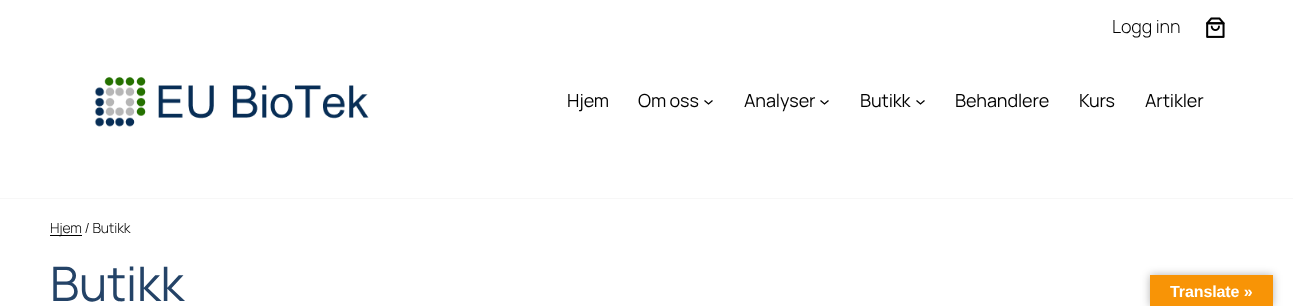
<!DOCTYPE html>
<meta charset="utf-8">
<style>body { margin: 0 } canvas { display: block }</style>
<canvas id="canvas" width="1293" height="306"></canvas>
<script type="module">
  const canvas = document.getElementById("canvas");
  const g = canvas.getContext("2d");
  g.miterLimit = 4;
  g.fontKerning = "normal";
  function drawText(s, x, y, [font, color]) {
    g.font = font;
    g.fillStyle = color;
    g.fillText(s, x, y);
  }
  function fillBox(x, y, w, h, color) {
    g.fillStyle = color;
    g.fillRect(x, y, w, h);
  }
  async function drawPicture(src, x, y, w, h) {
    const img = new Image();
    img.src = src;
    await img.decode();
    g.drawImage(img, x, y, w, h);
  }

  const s1 = ["300 18px Manrope", "#000000"];
  const s2 = ["18px Manrope", "#000000"];
  const s3 = ["300 14px Manrope", "#000000"];
  const s4 = ["47.5px Manrope", "#244367"];
  const s5 = ["bold 16px Liberation Sans", "#FFFFFF"];

  fillBox(0, 0, 1293, 306, "#FFFFFF");
  g.letterSpacing = "-0.1px";
  drawText("Logg inn", 1112, 33, s1);
  await drawPicture("pic1.png", 1206, 17, 19, 21);
  await drawPicture("pic2.png", 94, 77, 275, 50);
  drawText("Hjem", 567, 107, s2);
  drawText("Om oss", 638, 107, s2);
  g.beginPath();
  g.moveTo(704.5, 100.5);
  g.lineTo(708.5, 104);
  g.lineTo(712.5, 100.5);
  g.strokeStyle = "#000000";
  g.lineWidth = 1.3;
  g.stroke();
  drawText("Analyser", 744, 107, s2);
  g.beginPath();
  g.moveTo(820.5, 100.5);
  g.lineTo(824.5, 104);
  g.lineTo(828.5, 100.5);
  g.stroke();
  drawText("Butikk", 860, 107, s2);
  g.beginPath();
  g.moveTo(916.5, 100.5);
  g.lineTo(920.5, 104);
  g.lineTo(924.5, 100.5);
  g.stroke();
  drawText("Behandlere", 955, 107, s2);
  drawText("Kurs", 1079, 107, s2);
  drawText("Artikler", 1145, 107, s2);
  fillBox(0, 198, 1293, 1, "#F7F7F7");
  fillBox(50, 235, 32, 1, "#000000");
  drawText("Hjem / Butikk", 50, 233, s3);
  drawText("Butikk", 50, 301, s4);
  g.fillStyle = "rgba(0, 0, 0, 0.3)";
  g.filter = "blur(4.5px)";
  g.beginPath();
  g.rect(1150, 275, 123, 31);
  g.fill();
  g.filter = "none";
  fillBox(1150, 275, 123, 31, "#F89406");
  drawText("Translate »", 1170, 297, s5);
</script>
